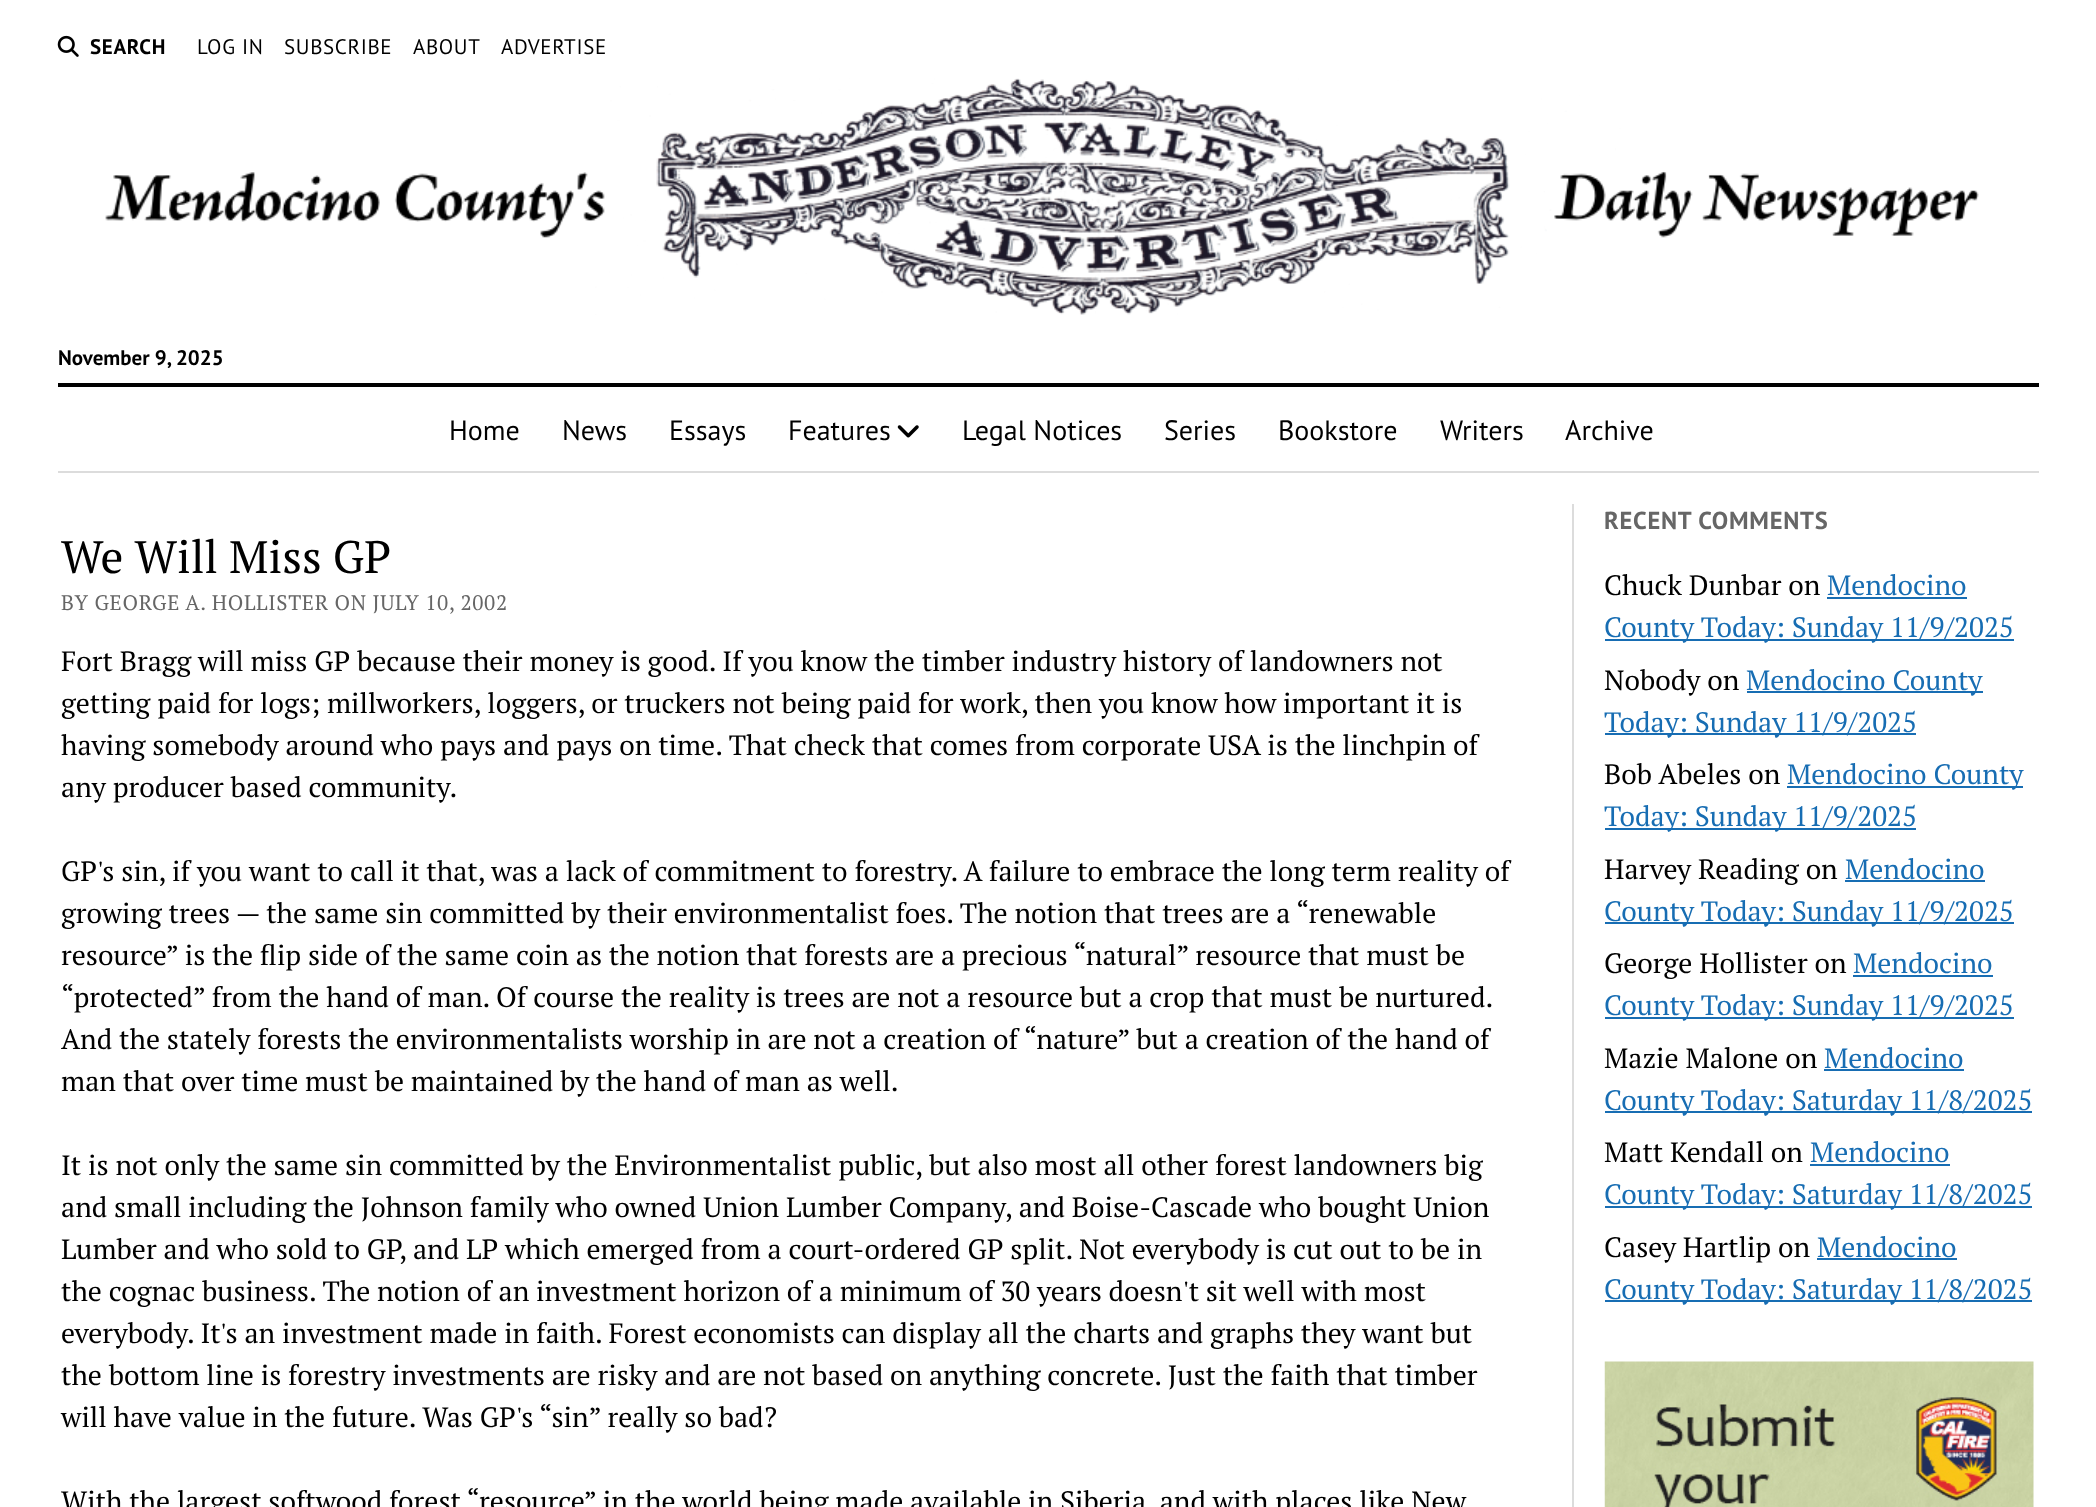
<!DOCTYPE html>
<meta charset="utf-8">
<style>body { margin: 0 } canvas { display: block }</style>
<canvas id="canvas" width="2096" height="1507"></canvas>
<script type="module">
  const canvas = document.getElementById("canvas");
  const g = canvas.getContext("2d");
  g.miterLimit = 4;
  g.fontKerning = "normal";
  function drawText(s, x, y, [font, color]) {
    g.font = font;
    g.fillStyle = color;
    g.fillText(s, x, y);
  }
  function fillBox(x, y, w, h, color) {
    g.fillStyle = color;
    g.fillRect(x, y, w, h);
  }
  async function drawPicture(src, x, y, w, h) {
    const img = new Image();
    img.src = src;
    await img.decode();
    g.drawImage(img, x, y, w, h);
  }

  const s1 = ["bold 21px PT Sans", "#000000"];
  const s2 = ["21px PT Sans", "#000000"];
  const s3 = ["28px PT Sans", "#000000"];
  const s4 = ["45.5px PT Serif", "#000000"];
  const s5 = ["21px PT Serif", "#666666"];
  const s6 = ["28px PT Serif", "#000000"];
  const s7 = ["bold 24.5px PT Sans", "#666666"];
  const s8 = ["28px PT Serif", "#176DB3"];

  fillBox(0, 0, 2096, 1507, "#FFFFFF");
  await drawPicture("pic1.png", 57, 35, 22, 22);
  g.letterSpacing = "0.65px";
  drawText("SEARCH", 90, 54, s1);
  drawText("LOG IN", 197, 54, s2);
  drawText("SUBSCRIBE", 284, 54, s2);
  drawText("ABOUT", 413, 54, s2);
  drawText("ADVERTISE", 501, 54, s2);
  await drawPicture("pic2.png", 105, 78, 1874, 237);
  g.letterSpacing = "0px";
  drawText("November 9, 2025", 58, 365, s1);
  fillBox(58, 383, 1981, 4, "#000000");
  fillBox(58, 471, 1981, 2, "#DCDCDC");
  drawText("Home", 449, 440, s3);
  drawText("News", 562, 440, s3);
  drawText("Essays", 669, 440, s3);
  drawText("Features", 788, 440, s3);
  await drawPicture("pic3.png", 897, 425, 22, 13);
  drawText("Legal Notices", 962, 440, s3);
  drawText("Series", 1164, 440, s3);
  drawText("Bookstore", 1278, 440, s3);
  drawText("Writers", 1440, 440, s3);
  drawText("Archive", 1565, 440, s3);
  fillBox(1572, 504, 2, 1003, "#DCDCDC");
  drawText("We Will Miss GP", 61, 573, s4);
  g.letterSpacing = "0.65px";
  drawText("BY GEORGE A. HOLLISTER ON JULY 10, 2002", 61, 610, s5);
  g.letterSpacing = "0px";
  drawText("Fort Bragg will miss GP because their money is good. If you know the timber industry history of landowners not", 61, 671, s6);
  drawText("getting paid for logs; millworkers, loggers, or truckers not being paid for work, then you know how important it is", 61, 713, s6);
  drawText("having somebody around who pays and pays on time. That check that comes from corporate USA is the linchpin of", 61, 755, s6);
  drawText("any producer based community.", 61, 797, s6);
  drawText("GP's sin, if you want to call it that, was a lack of commitment to forestry. A failure to embrace the long term reality of", 61, 881, s6);
  drawText("growing trees — the same sin committed by their environmentalist foes. The notion that trees are a “renewable", 61, 923, s6);
  drawText("resource” is the flip side of the same coin as the notion that forests are a precious “natural” resource that must be", 61, 965, s6);
  drawText("“protected” from the hand of man. Of course the reality is trees are not a resource but a crop that must be nurtured.", 61, 1007, s6);
  drawText("And the stately forests the environmentalists worship in are not a creation of “nature” but a creation of the hand of", 61, 1049, s6);
  drawText("man that over time must be maintained by the hand of man as well.", 61, 1091, s6);
  drawText("It is not only the same sin committed by the Environmentalist public, but also most all other forest landowners big", 61, 1175, s6);
  drawText("and small including the Johnson family who owned Union Lumber Company, and Boise-Cascade who bought Union", 61, 1217, s6);
  drawText("Lumber and who sold to GP, and LP which emerged from a court-ordered GP split. Not everybody is cut out to be in", 61, 1259, s6);
  drawText("the cognac business. The notion of an investment horizon of a minimum of 30 years doesn't sit well with most", 61, 1301, s6);
  drawText("everybody. It's an investment made in faith. Forest economists can display all the charts and graphs they want but", 61, 1343, s6);
  drawText("the bottom line is forestry investments are risky and are not based on anything concrete. Just the faith that timber", 61, 1385, s6);
  drawText("will have value in the future. Was GP's “sin” really so bad?", 61, 1427, s6);
  drawText("With the largest softwood forest “resource” in the world being made available in Siberia, and with places like New", 61, 1511, s6);
  g.letterSpacing = "0.75px";
  drawText("RECENT COMMENTS", 1604, 529, s7);
  g.letterSpacing = "0px";
  drawText("Chuck Dunbar on", 1604, 595, s6);
  drawText("Mendocino", 1827, 595, s8);
  fillBox(1827, 597, 140, 2, "#176DB3");
  fillBox(1605, 639, 409, 2, "#176DB3");
  drawText("County Today: Sunday 11/9/2025", 1604, 637, s8);
  drawText("Nobody on", 1604, 690, s6);
  fillBox(1747, 691, 236, 2, "#176DB3");
  drawText("Mendocino County", 1746, 690, s8);
  fillBox(1605, 733, 311, 2, "#176DB3");
  drawText("Today: Sunday 11/9/2025", 1604, 732, s8);
  drawText("Bob Abeles on", 1604, 784, s6);
  fillBox(1787, 786, 236, 2, "#176DB3");
  drawText("Mendocino County", 1787, 784, s8);
  fillBox(1605, 828, 311, 2, "#176DB3");
  drawText("Today: Sunday 11/9/2025", 1604, 826, s8);
  drawText("Harvey Reading on", 1604, 879, s6);
  drawText("Mendocino", 1845, 879, s8);
  fillBox(1845, 880, 140, 2, "#176DB3");
  fillBox(1605, 922, 409, 2, "#176DB3");
  drawText("County Today: Sunday 11/9/2025", 1604, 921, s8);
  drawText("George Hollister on", 1604, 973, s6);
  drawText("Mendocino", 1853, 973, s8);
  fillBox(1853, 975, 140, 2, "#176DB3");
  fillBox(1605, 1017, 409, 2, "#176DB3");
  drawText("County Today: Sunday 11/9/2025", 1604, 1015, s8);
  drawText("Mazie Malone on", 1604, 1068, s6);
  drawText("Mendocino", 1824, 1068, s8);
  fillBox(1824, 1069, 140, 2, "#176DB3");
  fillBox(1605, 1111, 427, 2, "#176DB3");
  drawText("County Today: Saturday 11/8/2025", 1604, 1110, s8);
  drawText("Matt Kendall on", 1604, 1162, s6);
  drawText("Mendocino", 1810, 1162, s8);
  fillBox(1810, 1164, 140, 2, "#176DB3");
  fillBox(1605, 1206, 427, 2, "#176DB3");
  drawText("County Today: Saturday 11/8/2025", 1604, 1204, s8);
  drawText("Casey Hartlip on", 1604, 1257, s6);
  drawText("Mendocino", 1817, 1257, s8);
  fillBox(1817, 1258, 140, 2, "#176DB3");
  fillBox(1605, 1300, 427, 2, "#176DB3");
  drawText("County Today: Saturday 11/8/2025", 1604, 1299, s8);
  await drawPicture("pic4.png", 1604, 1361, 430, 146);
</script>
